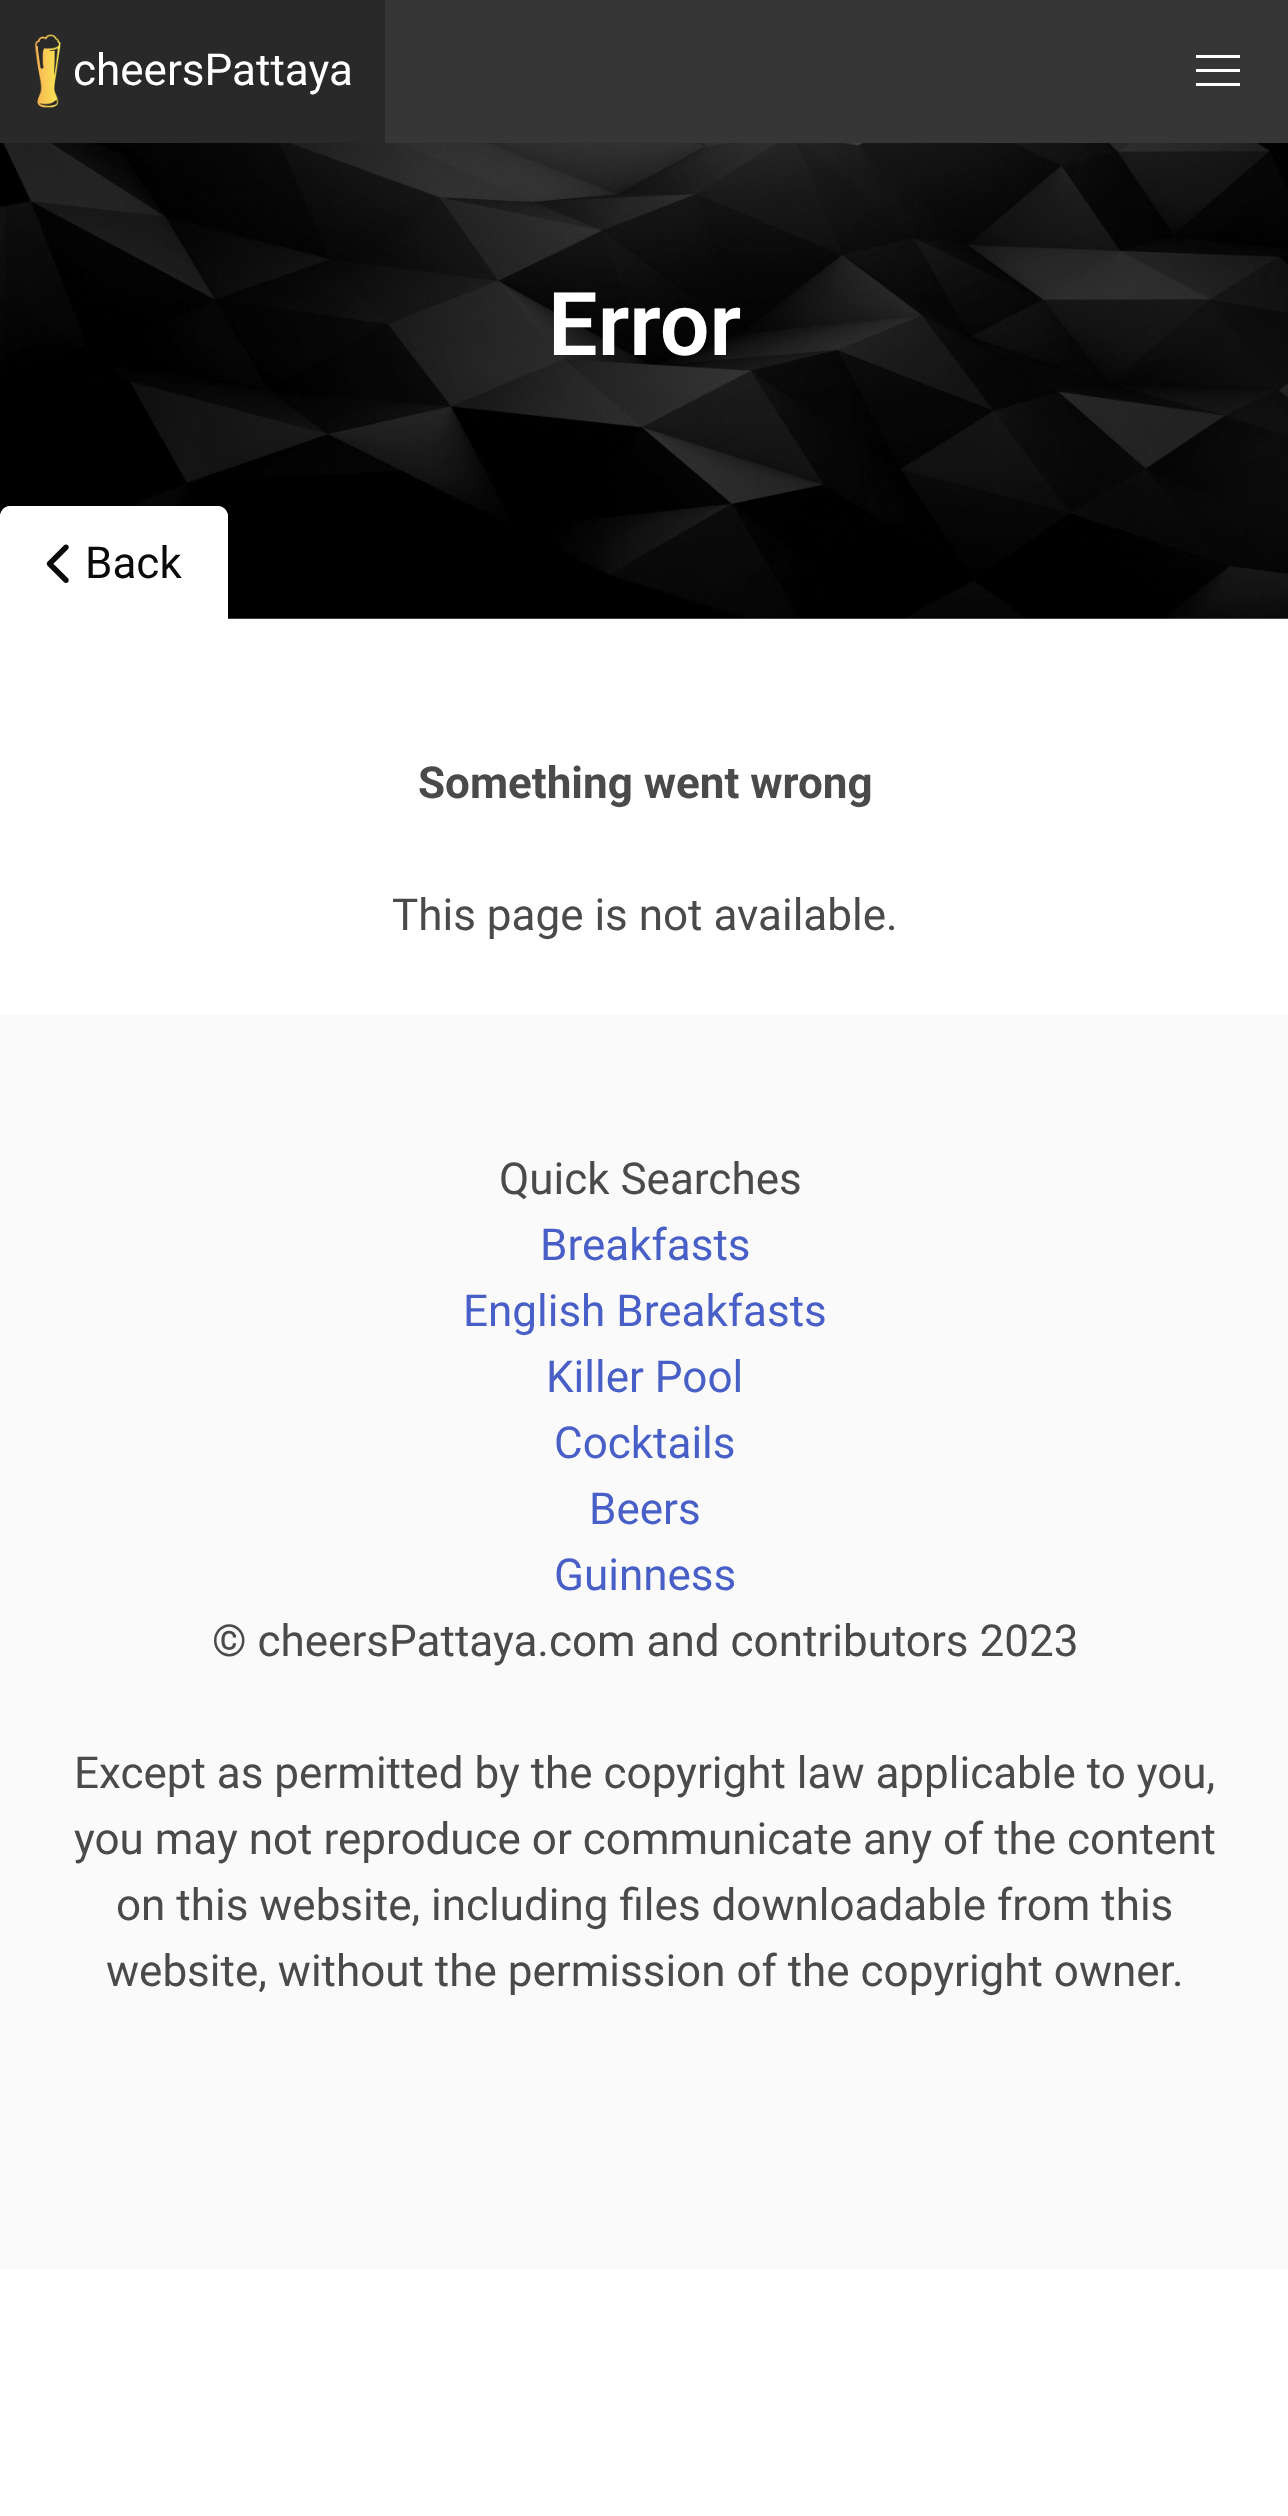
<!DOCTYPE html>
<meta charset="utf-8">
<style>body { margin: 0 } canvas { display: block }</style>
<canvas id="canvas" width="1288" height="2516"></canvas>
<script type="module">
  const canvas = document.getElementById("canvas");
  const g = canvas.getContext("2d");
  g.miterLimit = 4;
  g.fontKerning = "normal";
  function drawText(s, x, y, [font, color]) {
    g.font = font;
    g.fillStyle = color;
    g.fillText(s, x, y);
  }
  function fillBox(x, y, w, h, color) {
    g.fillStyle = color;
    g.fillRect(x, y, w, h);
  }
  async function drawPicture(src, x, y, w, h) {
    const img = new Image();
    img.src = src;
    await img.decode();
    g.drawImage(img, x, y, w, h);
  }

  const s1 = ["44px Roboto", "#FFFFFF"];
  const s2 = ["600 88px Roboto", "#FFFFFF"];
  const s3 = ["44px Roboto", "#0A0A0A"];
  const s4 = ["bold 44px Roboto", "#4A4A4A"];
  const s5 = ["44px Roboto", "#4A4A4A"];
  const s6 = ["44px Roboto", "#485FC7"];

  fillBox(0, 0, 1288, 2516, "#FFFFFF");
  fillBox(385, 0, 903, 143, "#363636");
  fillBox(0, 0, 385, 143, "#292929");
  await drawPicture("pic1.png", 34, 34, 27, 74);
  drawText("cheersPattaya", 73, 85, s1);
  fillBox(1196, 55, 44, 3, "#FFFFFF");
  fillBox(1196, 69, 44, 3, "#FFFFFF");
  fillBox(1196, 83, 44, 3, "#FFFFFF");
  await drawPicture("pic2.png", 0, 143, 1288, 476);
  drawText("Error", 548, 355, s2);
  g.beginPath();
  g.roundRect(0, 506, 228, 113, [11, 11, 0, 0]);
  g.fill();
  g.beginPath();
  g.moveTo(11, 506);
  g.bezierCurveTo(8, 506, 5, 507, 3, 509);
  g.lineTo(5, 511);
  g.bezierCurveTo(6, 510, 8, 509, 11, 509);
  g.lineTo(217, 509);
  g.bezierCurveTo(219, 509, 222, 510, 223, 511);
  g.lineTo(225, 509);
  g.bezierCurveTo(223, 507, 220, 506, 217, 506);
  g.closePath();
  g.fill();
  g.save();
  g.beginPath();
  g.rect(0, 506, 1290, 113);
  g.clip();
  g.beginPath();
  g.moveTo(225, 509);
  g.bezierCurveTo(227, 511, 228, 514, 228, 517);
  g.lineTo(228, 621);
  g.lineTo(226, 619);
  g.lineTo(226, 517);
  g.bezierCurveTo(226, 514, 225, 512, 223, 511);
  g.closePath();
  g.fill();
  g.beginPath();
  g.moveTo(0, 622);
  g.lineTo(3, 618);
  g.lineTo(3, 517);
  g.bezierCurveTo(3, 514, 4, 512, 5, 511);
  g.lineTo(3, 509);
  g.bezierCurveTo(1, 511, 0, 514, 0, 517);
  g.closePath();
  g.fill();
  g.restore();
  await drawPicture("pic3.png", 46, 544, 23, 39);
  drawText("Back", 85, 578, s3);
  drawText("Something went wrong", 418, 798, s4);
  drawText("This page is not available.", 392, 930, s5);
  fillBox(0, 1015, 1288, 1254, "#FAFAFA");
  drawText("Quick Searches", 499, 1194, s5);
  drawText("Breakfasts", 540, 1260, s6);
  drawText("English Breakfasts", 463, 1326, s6);
  drawText("Killer Pool", 546, 1392, s6);
  drawText("Cocktails", 554, 1458, s6);
  drawText("Beers", 589, 1524, s6);
  drawText("Guinness", 554, 1590, s6);
  drawText("© cheersPattaya.com and contributors 2023", 212, 1656, s5);
  drawText("Except as permitted by the copyright law applicable to you,", 74, 1788, s5);
  drawText("you may not reproduce or communicate any of the content", 74, 1854, s5);
  drawText("on this website, including files downloadable from this", 116, 1920, s5);
  drawText("website, without the permission of the copyright owner.", 106, 1986, s5);
</script>
